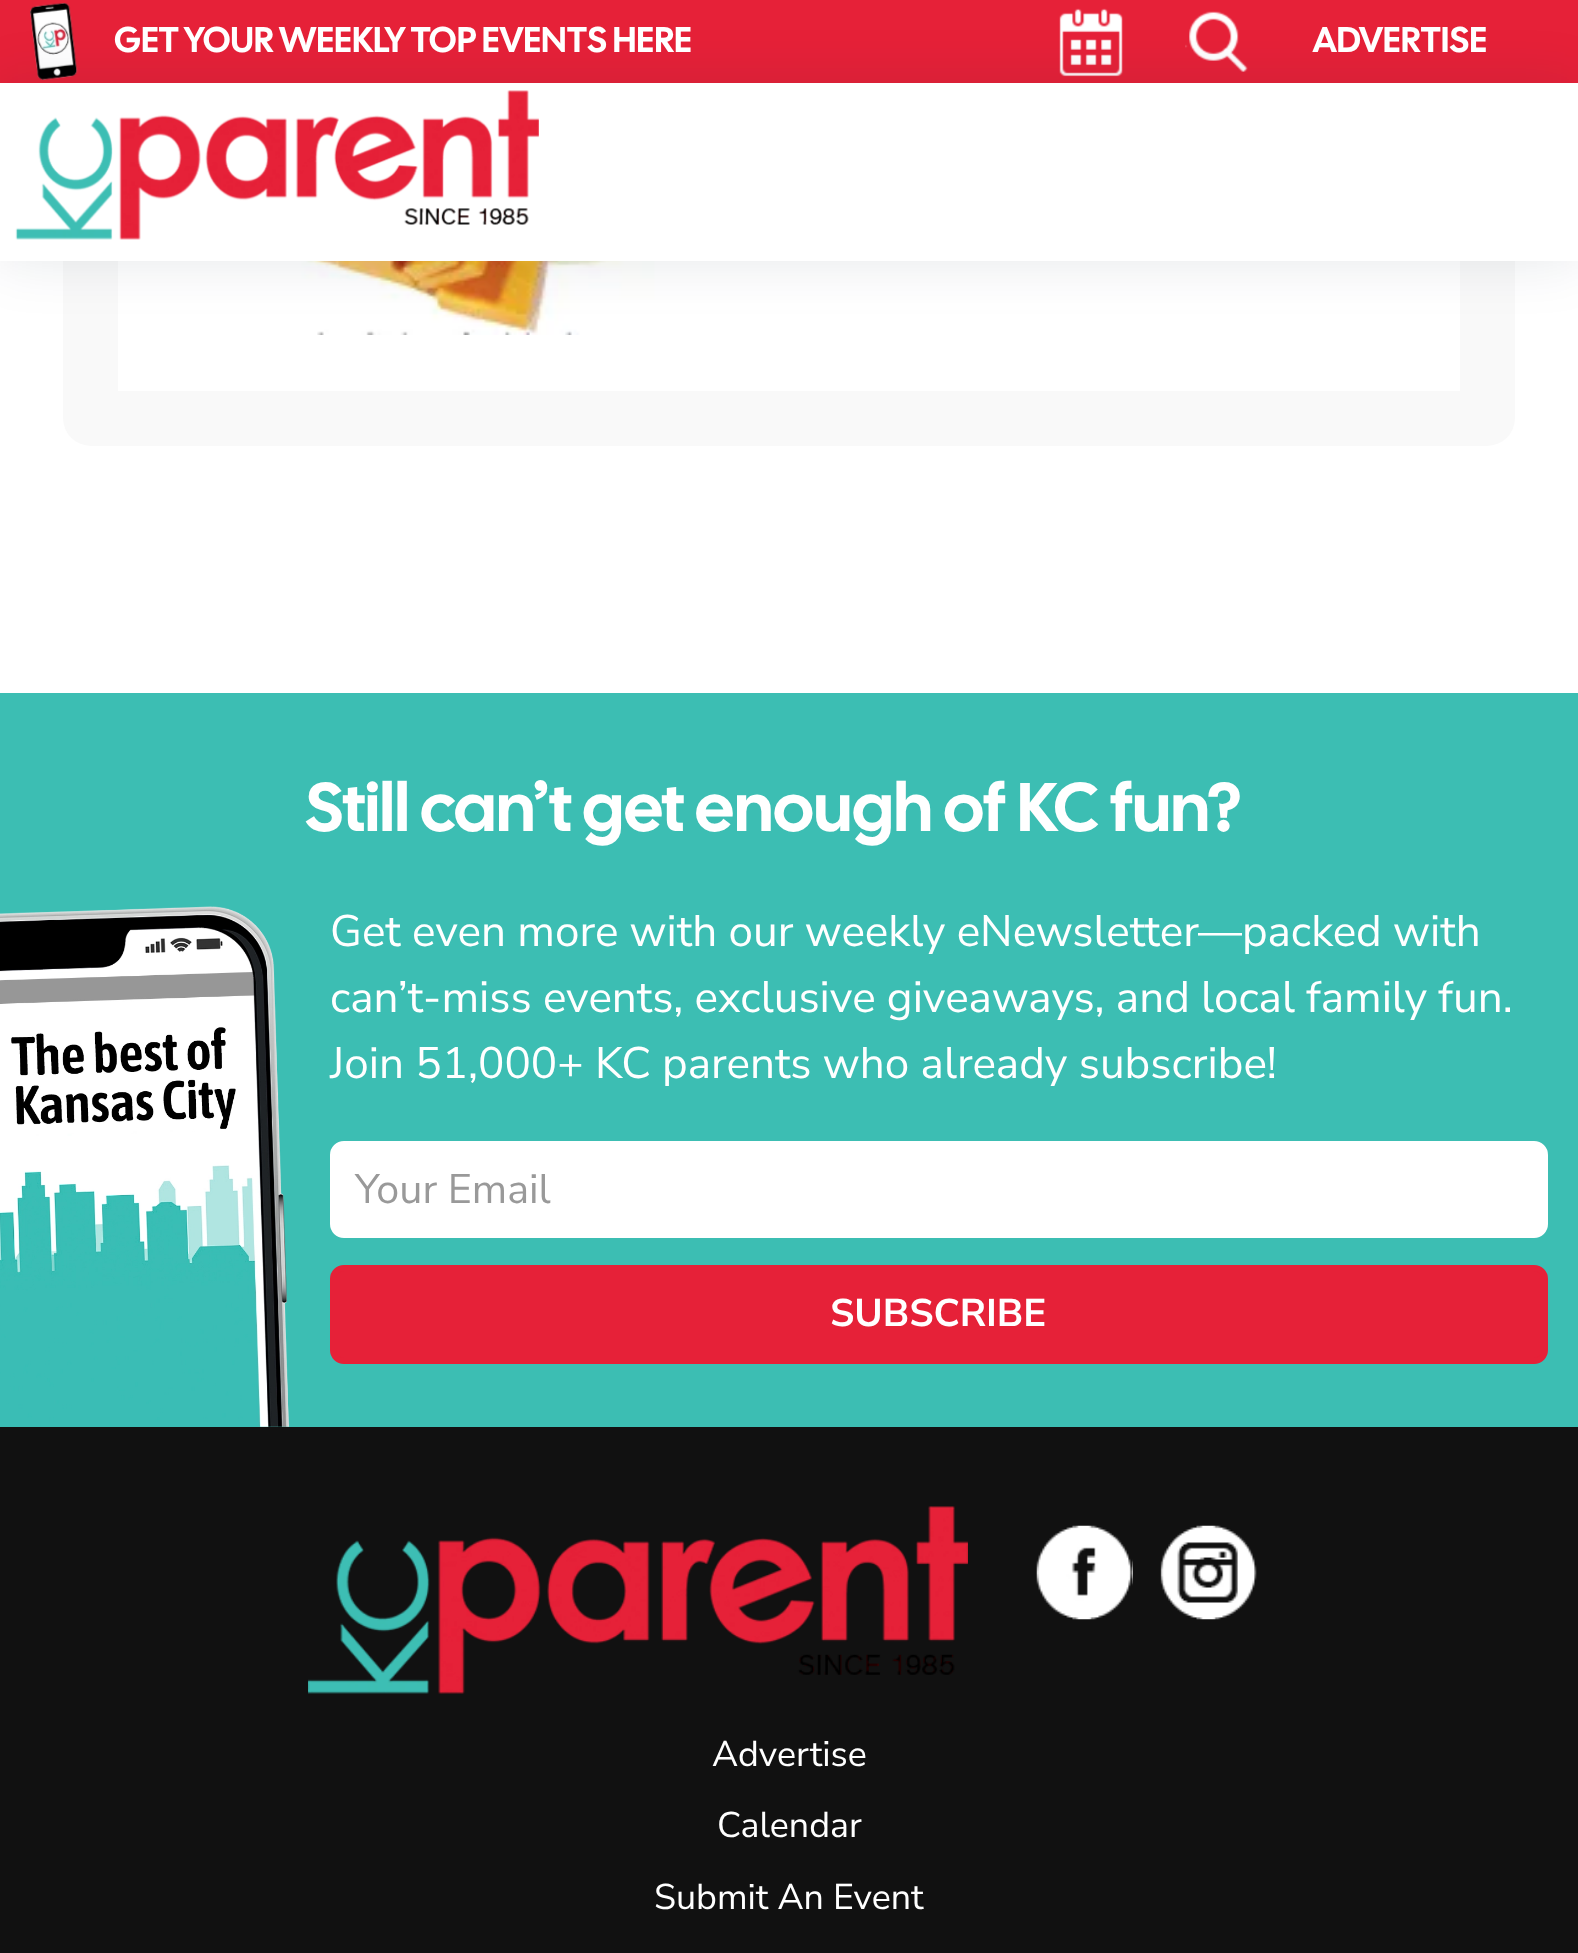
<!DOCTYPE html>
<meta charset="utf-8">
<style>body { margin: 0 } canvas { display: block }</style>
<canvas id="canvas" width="1578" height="1953"></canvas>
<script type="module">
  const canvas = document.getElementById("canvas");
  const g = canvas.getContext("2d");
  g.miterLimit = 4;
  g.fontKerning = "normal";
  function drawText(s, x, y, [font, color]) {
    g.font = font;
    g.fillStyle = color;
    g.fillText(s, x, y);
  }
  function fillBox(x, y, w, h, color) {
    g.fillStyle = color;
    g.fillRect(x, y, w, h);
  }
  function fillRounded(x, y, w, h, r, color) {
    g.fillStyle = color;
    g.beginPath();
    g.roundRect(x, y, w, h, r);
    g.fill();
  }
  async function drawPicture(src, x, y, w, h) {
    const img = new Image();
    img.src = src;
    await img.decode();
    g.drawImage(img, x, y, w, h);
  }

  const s1 = ["35.75px Cal Sans", "#FFFFFF"];
  const s2 = ["68.75px Cal Sans", "#FFFFFF"];
  const s3 = ["44px Nunito Sans", "#FFFFFF"];
  const s4 = ["41.25px Nunito Sans", "#999999"];
  const s5 = ["bold 38.5px Nunito Sans", "#FFFFFF"];
  const s6 = ["35.75px Nunito Sans", "#FFFFFF"];

  fillBox(0, 0, 1578, 1953, "#FFFFFF");
  fillRounded(63, -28, 1452, 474, 28, "#F9F9F9");
  fillBox(118, 261, 1342, 130, "#FFFFFF");
  await drawPicture("pic1.png", 242, 261, 413, 74);
  fillBox(0, 0, 1578, 83, "#E62138");
  await drawPicture("pic3.png", 30, 3, 48, 77);
  await drawPicture("pic4.png", 1059, 8, 64, 69);
  await drawPicture("pic5.png", 1185, 11, 63, 61);
  g.fillStyle = "rgba(9, 24, 45, 0.1)";
  g.filter = "blur(27.5px)";
  g.beginPath();
  g.rect(0, 83, 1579, 178);
  g.fill();
  g.filter = "none";
  fillBox(0, 83, 1578, 178, "#FFFFFF");
  await drawPicture("pic2.png", 15, 90, 524, 150);
  drawText("GET YOUR WEEKLY TOP EVENTS HERE", 114, 52, s1);
  drawText("ADVERTISE", 1313, 52, s1);
  fillBox(0, 693, 1578, 734, "#3CBEB3");
  await drawPicture("pic6.png", 0, 906, 290, 521);
  drawText("Still can’t get enough of KC fun?", 305, 831, s2);
  drawText("Get even more with our weekly eNewsletter—packed with", 330, 946, s3);
  drawText("can’t-miss events, exclusive giveaways, and local family fun.", 330, 1012, s3);
  drawText("Join 51,000+ KC parents who already subscribe!", 330, 1078, s3);
  g.beginPath();
  g.roundRect(331.5, 1142.5, 1215, 94, 12.5);
  g.fill();
  g.strokeStyle = "#FFFFFF";
  g.lineWidth = 3;
  g.stroke();
  drawText("Your Email", 355, 1203, s4);
  g.fillStyle = "#E62138";
  g.beginPath();
  g.roundRect(333, 1268, 1212, 93, 11);
  g.fill();
  g.strokeStyle = "#E62138";
  g.lineWidth = 6;
  g.stroke();
  drawText("SUBSCRIBE", 830, 1326, s5);
  fillBox(0, 1427, 1578, 526, "#111111");
  await drawPicture("pic7.png", 308, 1506, 660, 188);
  await drawPicture("pic8.png", 1036, 1525, 97, 95);
  await drawPicture("pic9.png", 1160, 1525, 97, 95);
  drawText("Advertise", 712, 1766, s6);
  drawText("Calendar", 717, 1837, s6);
  drawText("Submit An Event", 654, 1909, s6);
</script>
